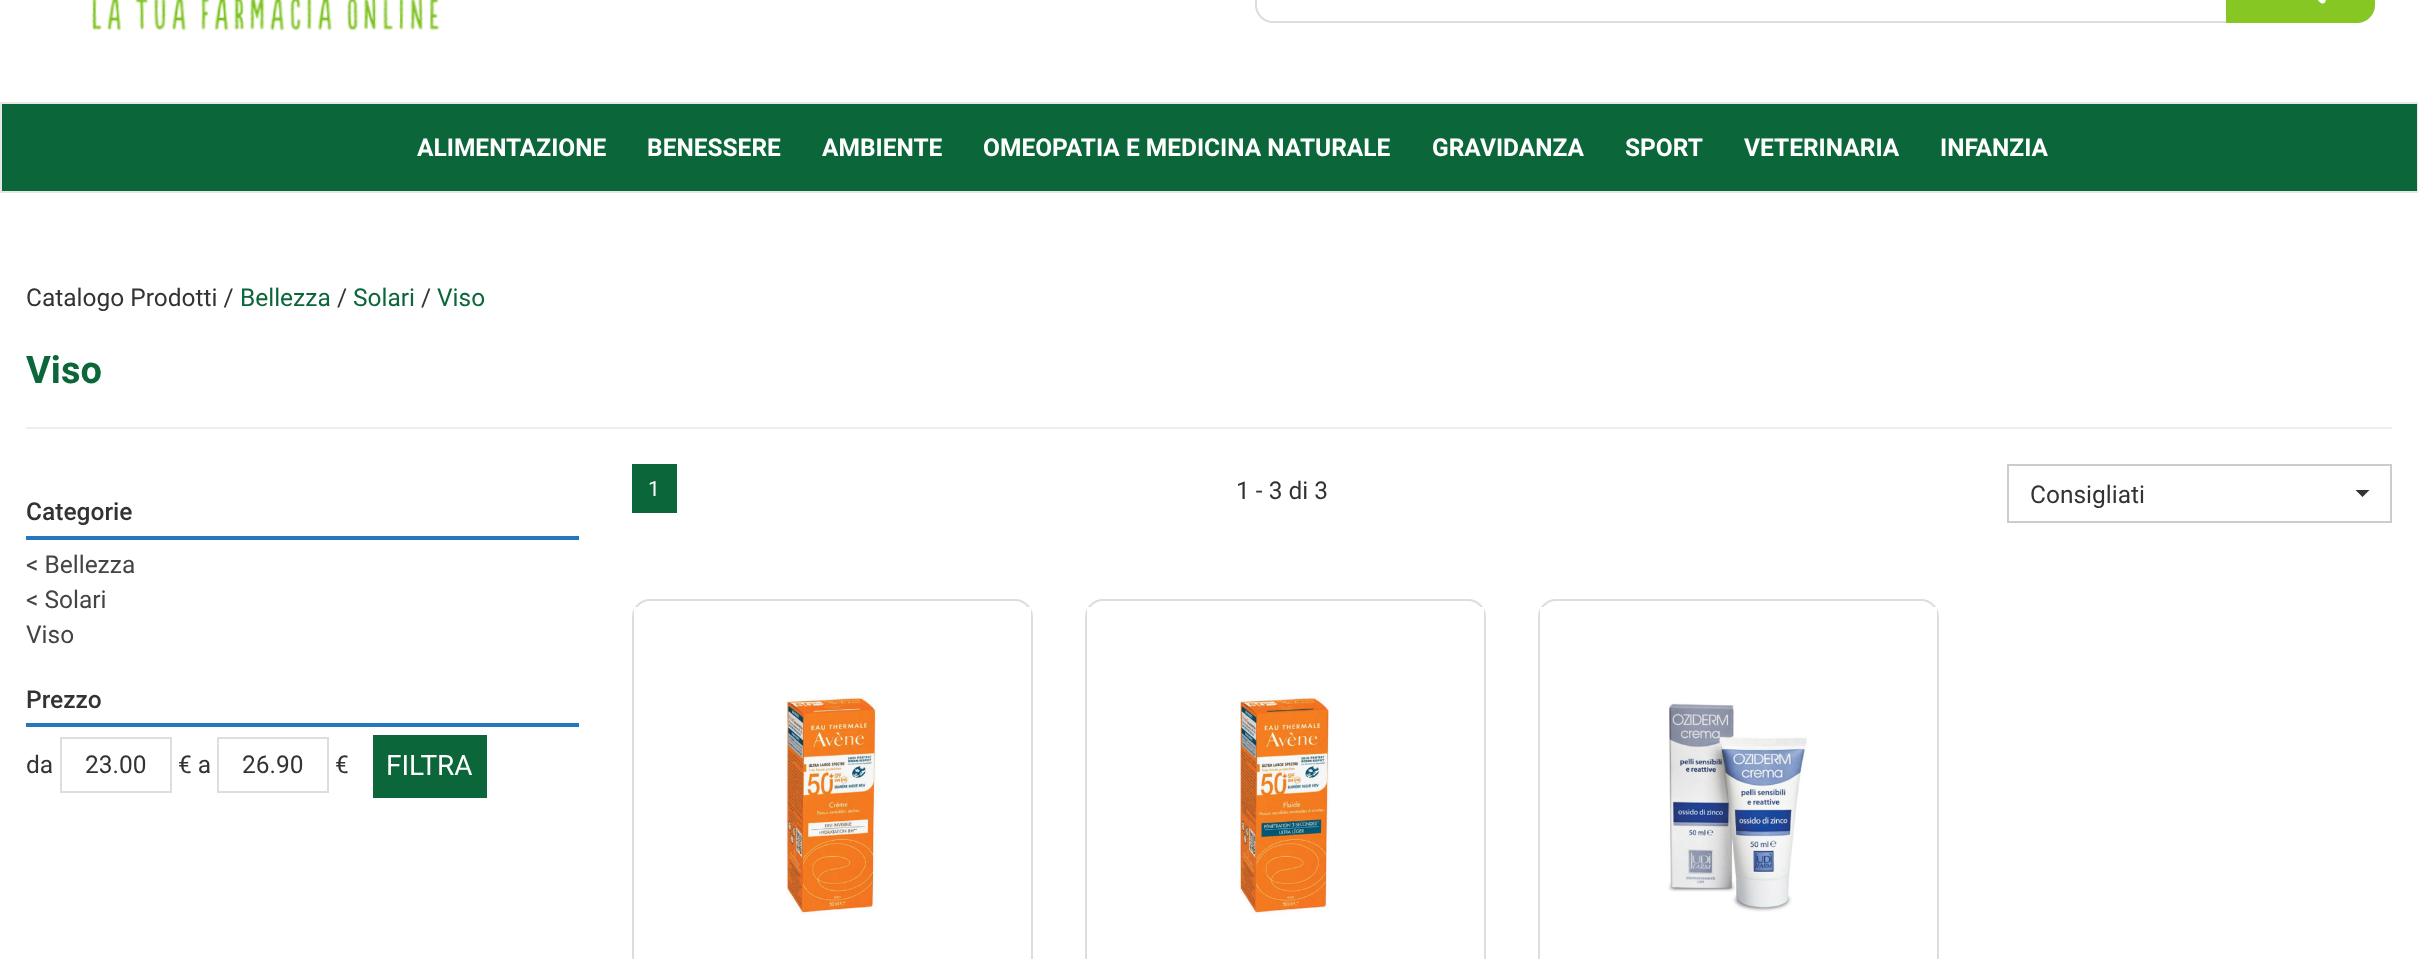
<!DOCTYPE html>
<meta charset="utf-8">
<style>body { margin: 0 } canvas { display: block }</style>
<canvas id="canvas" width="2418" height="959"></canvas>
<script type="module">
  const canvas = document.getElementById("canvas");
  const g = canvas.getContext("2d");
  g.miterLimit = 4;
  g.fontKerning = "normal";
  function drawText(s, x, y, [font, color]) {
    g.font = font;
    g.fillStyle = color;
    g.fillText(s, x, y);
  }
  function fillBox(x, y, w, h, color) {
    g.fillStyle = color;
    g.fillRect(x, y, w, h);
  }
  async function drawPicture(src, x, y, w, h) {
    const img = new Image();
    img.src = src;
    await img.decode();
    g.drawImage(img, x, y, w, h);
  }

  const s1 = ["bold 24.5px Roboto", "#FFFFFF"];
  const s2 = ["24.5px Roboto", "#333333"];
  const s3 = ["24.5px Roboto", "#0B663A"];
  const s4 = ["bold 38px Roboto", "#0B663A"];
  const s5 = ["21px Roboto", "#FFFFFF"];
  const s6 = ["500 24.5px Roboto", "#333333"];
  const s7 = ["24.5px Roboto", "#444444"];
  const s8 = ["28px Roboto", "#FFFFFF"];

  fillBox(0, 0, 2418, 959, "#FFFFFF");
  await drawPicture("pic1.png", 91, 0, 349, 31);
  g.beginPath();
  g.roundRect(1256, -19, 987, 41, 17);
  g.strokeStyle = "#DDDDDD";
  g.lineWidth = 2;
  g.stroke();
  g.fillStyle = "#86C723";
  g.beginPath();
  g.moveTo(2226, -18);
  g.lineTo(2357, -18);
  g.bezierCurveTo(2367, -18, 2375, -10, 2375, 0);
  g.lineTo(2375, 5);
  g.bezierCurveTo(2375, 15, 2367, 23, 2357, 23);
  g.lineTo(2226, 23);
  g.closePath();
  g.fill();
  await drawPicture("pic2.png", 2317, 0, 9, 4);
  g.fillStyle = "#0B663A";
  g.beginPath();
  g.rect(1, 103, 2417, 89);
  g.fill();
  g.strokeStyle = "#E7E7E7";
  g.stroke();
  drawText("ALIMENTAZIONE", 417, 156, s1);
  drawText("BENESSERE", 647, 156, s1);
  drawText("AMBIENTE", 822, 156, s1);
  drawText("OMEOPATIA E MEDICINA NATURALE", 983, 156, s1);
  drawText("GRAVIDANZA", 1432, 156, s1);
  drawText("SPORT", 1625, 156, s1);
  drawText("VETERINARIA", 1744, 156, s1);
  drawText("INFANZIA", 1940, 156, s1);
  drawText("Catalogo Prodotti /", 26, 306, s2);
  drawText("Bellezza", 240, 306, s3);
  drawText("/", 337, 306, s2);
  drawText("Solari", 353, 306, s3);
  drawText("/", 421, 306, s2);
  drawText("Viso", 437, 306, s3);
  drawText("Viso", 26, 383, s4);
  fillBox(26, 427, 2366, 2, "#EEEEEE");
  fillBox(632, 464, 45, 49, "#0B663A");
  drawText("1", 648, 496, s5);
  drawText("1 - 3 di 3", 1236, 499, s2);
  g.strokeStyle = "#CCCCCC";
  g.strokeRect(2008, 465, 383, 57);
  drawText("Consigliati", 2030, 503, s2);
  g.beginPath();
  g.moveTo(2355.5, 490);
  g.lineTo(2369.5, 490);
  g.lineTo(2362.5, 497);
  g.closePath();
  g.fill();
  g.beginPath();
  g.roundRect(633, 600, 399, 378, 17);
  g.strokeStyle = "#DDDDDD";
  g.stroke();
  fillBox(634, 607, 397, 9, "#FFFFFF");
  await drawPicture("pic3.png", 786, 696, 91, 219);
  g.beginPath();
  g.roundRect(1086, 600, 399, 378, 17);
  g.stroke();
  fillBox(1087, 607, 397, 9, "#FFFFFF");
  await drawPicture("pic4.png", 1239, 696, 91, 219);
  g.beginPath();
  g.roundRect(1539, 600, 399, 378, 17);
  g.stroke();
  fillBox(1540, 607, 397, 9, "#FFFFFF");
  await drawPicture("pic5.png", 1667, 703, 140, 209);
  drawText("Categorie", 26, 520, s6);
  fillBox(26, 536, 553, 4, "#2477BD");
  drawText("< Bellezza", 26, 573, s7);
  drawText("< Solari", 26, 608, s7);
  drawText("Viso", 26, 643, s7);
  drawText("Prezzo", 26, 708, s6);
  fillBox(26, 723, 553, 4, "#2477BD");
  drawText("da", 26, 773, s2);
  g.strokeStyle = "#DEDEDE";
  g.strokeRect(61, 738, 110, 54);
  drawText("23.00", 85, 773, s2);
  drawText("€ a", 178, 773, s2);
  g.strokeRect(218, 738, 110, 54);
  drawText("26.90", 242, 773, s2);
  drawText("€", 335, 773, s2);
  fillBox(373, 735, 114, 63, "#0B663A");
  drawText("FILTRA", 386, 775, s8);
</script>
